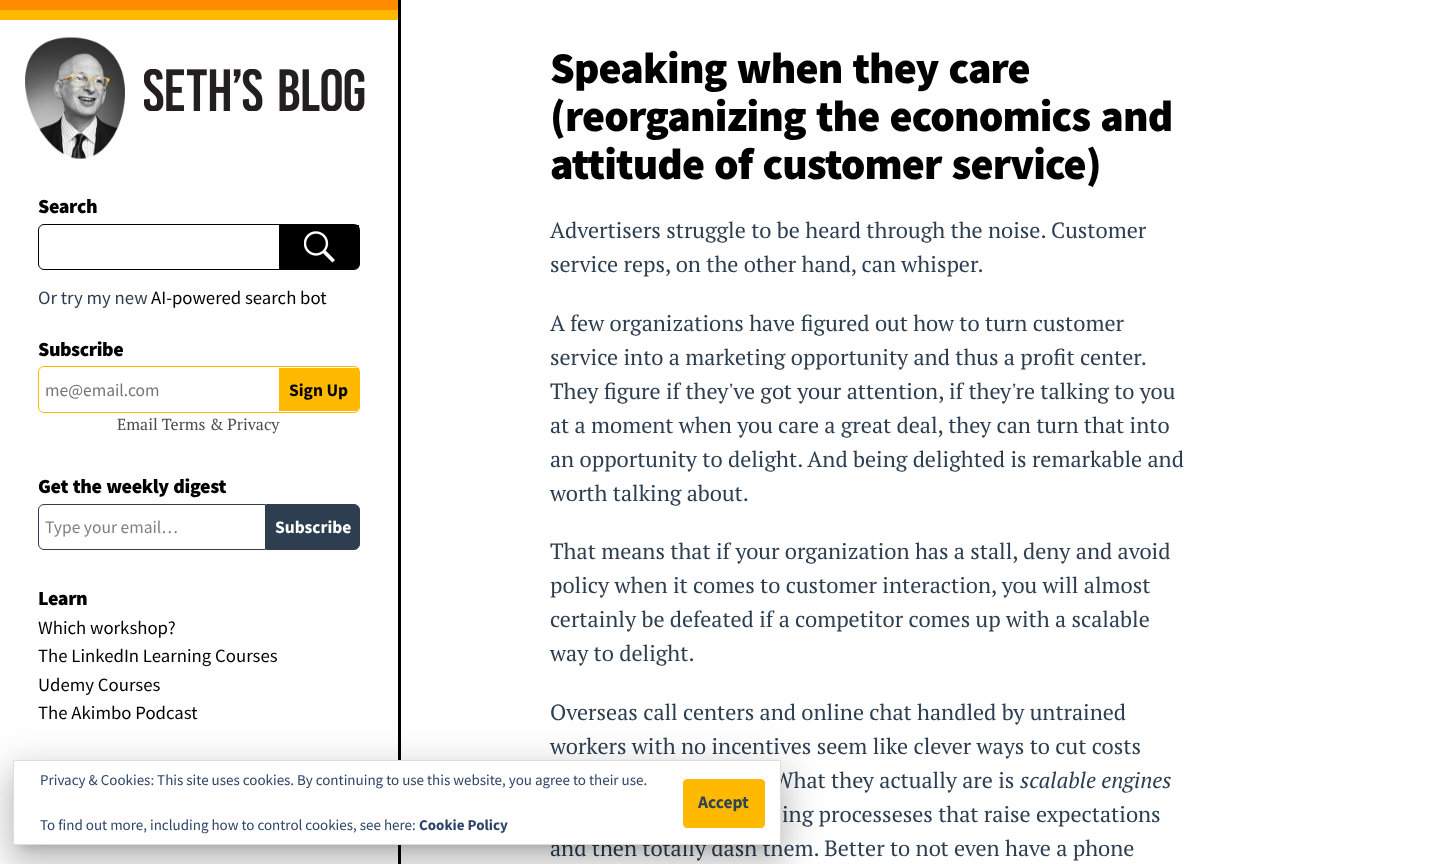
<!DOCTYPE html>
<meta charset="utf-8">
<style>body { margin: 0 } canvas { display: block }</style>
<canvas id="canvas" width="1431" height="864"></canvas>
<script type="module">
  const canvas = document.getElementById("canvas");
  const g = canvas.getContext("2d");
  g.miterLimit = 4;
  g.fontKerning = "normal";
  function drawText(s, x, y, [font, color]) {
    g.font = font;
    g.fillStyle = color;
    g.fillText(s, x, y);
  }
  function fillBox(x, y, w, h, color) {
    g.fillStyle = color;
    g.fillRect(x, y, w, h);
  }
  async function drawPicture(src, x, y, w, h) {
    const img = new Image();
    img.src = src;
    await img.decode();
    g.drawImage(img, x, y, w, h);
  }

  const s1 = ["900 20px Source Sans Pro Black", "#000000"];
  const s2 = ["18.75px Source Sans Pro", "#2C3E50"];
  const s3 = ["18.75px Source Sans Pro", "#000000"];
  const s4 = ["17.5px Source Sans Pro", "#757575"];
  const s5 = ["bold 17.5px Source Sans Pro", "#000000"];
  const s6 = ["16px PT Serif", "#4D4D4D"];
  const s7 = ["17.5px Source Sans Pro", "#808080"];
  const s8 = ["bold 17.5px Source Sans Pro", "#FFFFFF"];
  const s9 = ["900 44px Source Sans Pro Black", "#000000"];
  const s10 = ["22px PT Serif", "#2C3E50"];
  const s11 = ["italic 22px PT Serif", "#2C3E50"];
  const s12 = ["15px Source Sans Pro", "#2E4467"];
  const s13 = ["bold 17.5px Source Sans Pro", "#2E4453"];
  const s14 = ["bold 15px Source Sans Pro", "#2E4467"];

  fillBox(0, 0, 1431, 864, "#FFFFFF");
  fillBox(398, 0, 3, 864, "#000000");
  fillBox(0, 10, 398, 10, "#FFB900");
  fillBox(0, 0, 398, 10, "#FF8C00");
  await drawPicture("pic1.png", 25, 37, 100, 122);
  await drawPicture("pic2.png", 144, 69, 221, 42);
  g.letterSpacing = "-0.4px";
  drawText("Search", 38, 213, s1);
  g.beginPath();
  g.roundRect(38.5, 224.5, 321, 45, 5.5);
  g.strokeStyle = "#000000";
  g.stroke();
  g.beginPath();
  g.roundRect(279, 225, 80, 44, [0, 0, 4, 0]);
  g.fill();
  await drawPicture("pic3.png", 304, 231, 31, 32);
  g.letterSpacing = "0px";
  drawText("Or try my new", 38, 304, s2);
  drawText("AI-powered search bot", 151, 304, s3);
  g.letterSpacing = "-0.4px";
  drawText("Subscribe", 38, 356, s1);
  g.beginPath();
  g.roundRect(38.5, 366.5, 321, 46, 5.5);
  g.strokeStyle = "#FFB900";
  g.stroke();
  g.letterSpacing = "0px";
  drawText("me@email.com", 45, 396, s4);
  g.fillStyle = "#FFB900";
  g.beginPath();
  g.roundRect(279, 368, 80, 43, [0, 0, 4, 0]);
  g.fill();
  drawText("Sign Up", 289, 396, s5);
  drawText("Email Terms & Privacy", 117, 430, s6);
  g.letterSpacing = "-0.4px";
  g.wordSpacing = "1px";
  drawText("Get the weekly digest", 38, 493, s1);
  g.beginPath();
  g.roundRect(38.5, 504.5, 227, 45, [5.5, 0, 0, 5.5]);
  g.strokeStyle = "#2C3E50";
  g.stroke();
  g.letterSpacing = "0px";
  g.wordSpacing = "0px";
  drawText("Type your email…", 45, 533, s7);
  g.fillStyle = "#2C3E50";
  g.beginPath();
  g.roundRect(266.5, 504.5, 93, 45, [0, 5.5, 5.5, 0]);
  g.fill();
  g.stroke();
  drawText("Subscribe", 275, 533, s8);
  g.letterSpacing = "-0.4px";
  drawText("Learn", 38, 605, s1);
  g.letterSpacing = "0px";
  drawText("Which workshop?", 38, 634, s3);
  drawText("The LinkedIn Learning Courses", 38, 662, s3);
  drawText("Udemy Courses", 38, 691, s3);
  drawText("The Akimbo Podcast", 38, 719, s3);
  g.letterSpacing = "-0.9px";
  g.wordSpacing = "2px";
  drawText("Speaking when they care", 550, 83, s9);
  drawText("(reorganizing the economics and", 550, 131, s9);
  drawText("attitude of customer service)", 550, 179, s9);
  g.letterSpacing = "0px";
  g.wordSpacing = "0px";
  drawText("Advertisers struggle to be heard through the noise. Customer", 550, 238, s10);
  drawText("service reps, on the other hand, can whisper.", 550, 272, s10);
  drawText("A few organizations have figured out how to turn customer", 550, 331, s10);
  drawText("service into a marketing opportunity and thus a profit center.", 550, 365, s10);
  drawText("They figure if they've got your attention, if they're talking to you", 550, 399, s10);
  drawText("at a moment when you care a great deal, they can turn that into", 550, 433, s10);
  drawText("an opportunity to delight. And being delighted is remarkable and", 550, 467, s10);
  drawText("worth talking about.", 550, 501, s10);
  drawText("That means that if your organization has a stall, deny and avoid", 550, 559, s10);
  drawText("policy when it comes to customer interaction, you will almost", 550, 593, s10);
  drawText("certainly be defeated if a competitor comes up with a scalable", 550, 627, s10);
  drawText("way to delight.", 550, 661, s10);
  drawText("Overseas call centers and online chat handled by untrained", 550, 720, s10);
  drawText("workers with no incentives seem like clever ways to cut costs", 550, 754, s10);
  drawText("What they actually are is", 773, 788, s10);
  drawText("scalable engines", 1020, 788, s11);
  drawText("ing processeses that raise expectations", 782, 822, s10);
  drawText("and then totally dash them. Better to not even have a phone", 550, 856, s10);
  g.fillStyle = "rgba(0, 0, 0, 0.2)";
  g.filter = "blur(6px)";
  g.beginPath();
  g.rect(21, 779, 752, 67);
  g.fill();
  g.filter = "none";
  g.fillStyle = "rgba(0, 0, 0, 0.12)";
  g.filter = "blur(19px)";
  g.beginPath();
  g.rect(6, 761, 782, 98);
  g.fill();
  g.filter = "none";
  g.fillStyle = "rgba(0, 0, 0, 0.14)";
  g.filter = "blur(15px)";
  g.beginPath();
  g.rect(10, 778, 774, 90);
  g.fill();
  g.filter = "none";
  g.fillStyle = "#FFFFFF";
  g.beginPath();
  g.rect(13.5, 760.5, 767, 84);
  g.fill();
  g.strokeStyle = "#DEDEDE";
  g.stroke();
  drawText("Privacy & Cookies: This site uses cookies. By continuing to use this website, you agree to their use.", 40, 785, s12);
  g.fillStyle = "#FFB900";
  g.beginPath();
  g.roundRect(683.5, 779.5, 81, 48, 3.5);
  g.fill();
  g.strokeStyle = "#FFB900";
  g.stroke();
  drawText("Accept", 698, 808, s13);
  drawText("To find out more, including how to control cookies, see here:", 40, 830, s12);
  drawText("Cookie Policy", 419, 830, s14);
</script>
